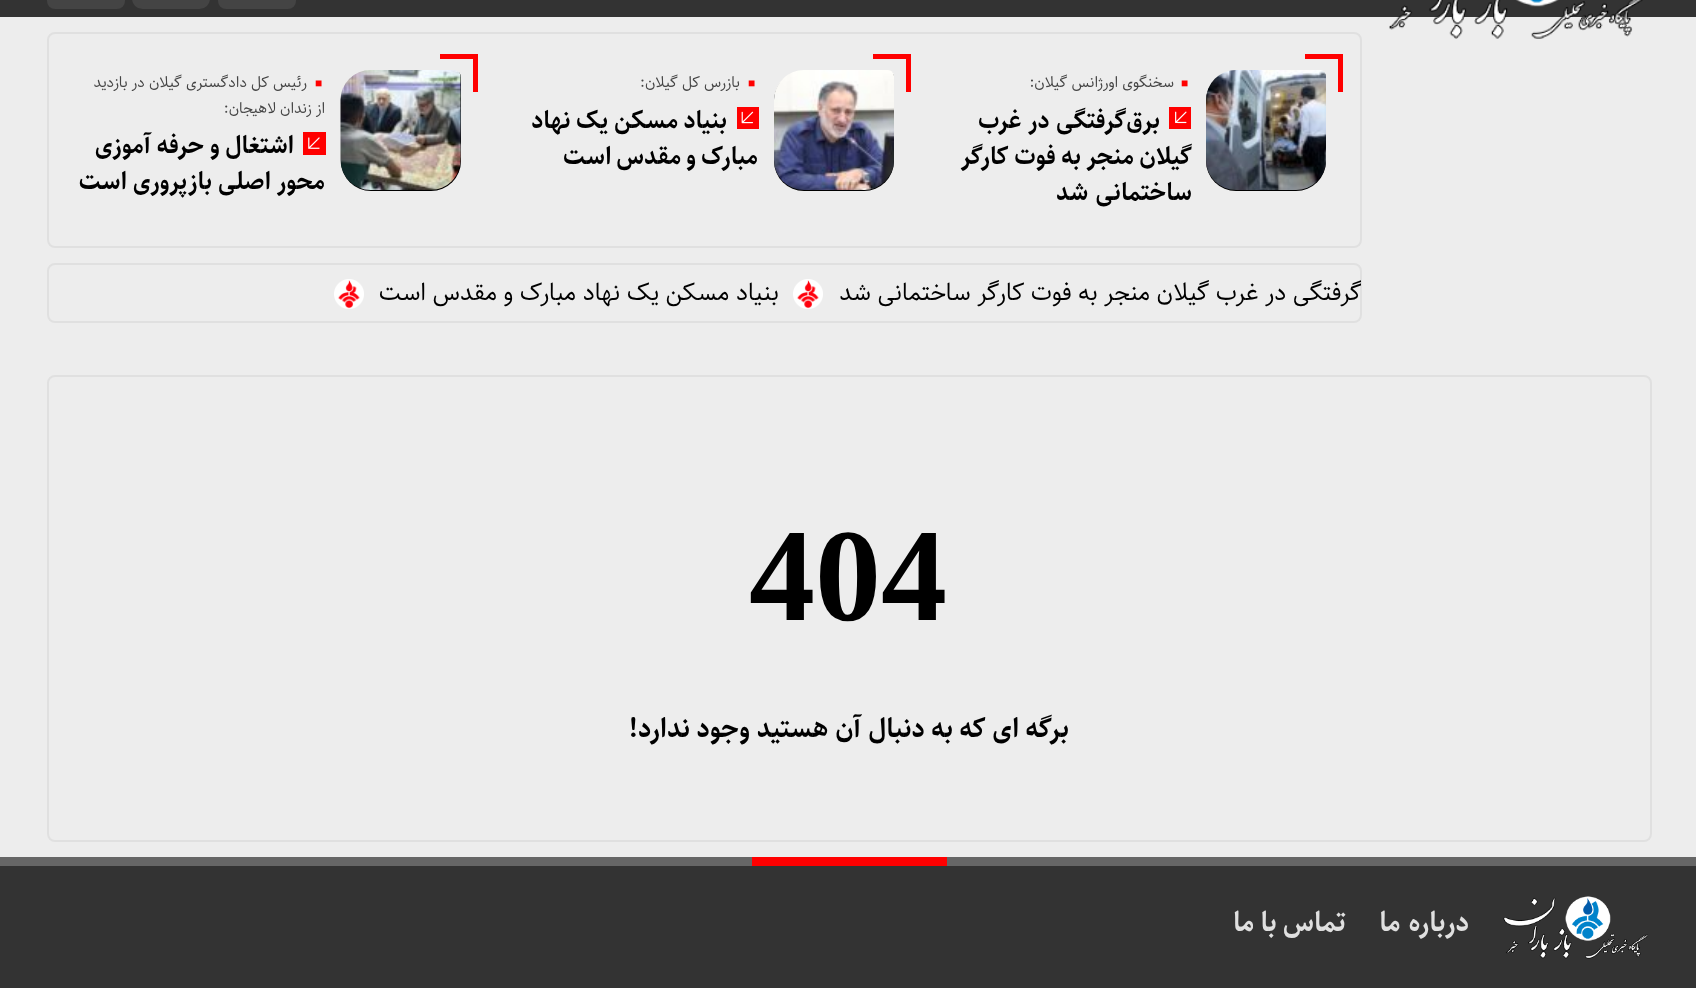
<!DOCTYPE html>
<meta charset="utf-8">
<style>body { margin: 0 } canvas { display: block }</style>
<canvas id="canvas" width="1696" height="988"></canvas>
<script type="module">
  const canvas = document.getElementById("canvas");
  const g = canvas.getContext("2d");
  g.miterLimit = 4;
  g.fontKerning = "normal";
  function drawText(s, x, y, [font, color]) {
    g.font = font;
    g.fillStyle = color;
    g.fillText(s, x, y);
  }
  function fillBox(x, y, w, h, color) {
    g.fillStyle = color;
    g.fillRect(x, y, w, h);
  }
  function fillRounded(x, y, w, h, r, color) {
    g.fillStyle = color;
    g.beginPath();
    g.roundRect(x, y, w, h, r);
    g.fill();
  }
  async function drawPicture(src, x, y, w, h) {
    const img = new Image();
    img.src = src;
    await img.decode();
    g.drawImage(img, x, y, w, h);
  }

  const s1 = ["12px Liberation Serif", "#FF0000"];
  const s2 = ["15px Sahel", "#444444"];
  const s3 = ["bold 24px Sahel", "#000000"];
  const s4 = ["24px Sahel", "#000000"];
  const s5 = ["bold 132px Liberation Serif", "#000000"];
  const s6 = ["bold 26.4px Sahel", "#000000"];
  const s7 = ["bold 27px Sahel", "#E0E0E0"];

  fillBox(0, 0, 1696, 988, "#EDEDED");
  fillBox(0, 0, 1696, 17, "#333333");
  await drawPicture("pic1.png", 1389, 0, 254, 39);
  fillRounded(218, -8, 78, 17, 8, "#444444");
  fillRounded(132, -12, 78, 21, 12, "#444444");
  fillRounded(47, -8, 78, 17, 8, "#444444");
  g.beginPath();
  g.roundRect(48, 33, 1313, 214, 7);
  g.strokeStyle = "#E0E0E0";
  g.lineWidth = 2;
  g.stroke();
  fillBox(1305, 54, 38, 5, "#FF0000");
  fillBox(1338, 54, 5, 38, "#FF0000");
  g.fillStyle = "#000000";
  g.beginPath();
  g.roundRect(1206, 71, 120, 120, [30, 6, 30, 30]);
  g.fill();
  await drawPicture("pic2.png", 1206, 70, 120, 120);
  drawText("■", 1181, 87, s1);
  g.direction = "rtl";
  drawText("سخنگوی اورژانس گیلان:", 1174, 87, s2);
  fillBox(1169, 107, 22, 22, "#FF0000");
  await drawPicture("pic3.png", 1175, 111, 12, 13);
  g.letterSpacing = "-0.5px";
  g.wordSpacing = "1px";
  drawText("برق‌گرفتگی در غرب", 1160, 128, s3);
  g.wordSpacing = "0px";
  drawText("گیلان منجر به فوت کارگر", 1192, 164, s3);
  g.wordSpacing = "2px";
  drawText("ساختمانی شد", 1192, 200, s3);
  fillBox(873, 54, 38, 5, "#FF0000");
  fillBox(906, 54, 5, 38, "#FF0000");
  g.fillStyle = "#000000";
  g.beginPath();
  g.roundRect(774, 71, 120, 120, [30, 6, 30, 30]);
  g.fill();
  await drawPicture("pic4.png", 774, 70, 120, 120);
  g.letterSpacing = "0px";
  g.wordSpacing = "0px";
  g.direction = "ltr";
  drawText("■", 748, 87, s1);
  g.direction = "rtl";
  drawText("بازرس کل گیلان:", 740, 87, s2);
  fillBox(737, 107, 22, 22, "#FF0000");
  await drawPicture("pic5.png", 741, 111, 13, 13);
  g.letterSpacing = "-0.5px";
  drawText("بنیاد مسکن یک نهاد", 727, 128, s3);
  g.wordSpacing = "-0.5px";
  drawText("مبارک و مقدس است", 758, 164, s3);
  fillBox(440, 54, 37, 5, "#FF0000");
  fillBox(473, 54, 5, 38, "#FF0000");
  g.fillStyle = "#000000";
  g.beginPath();
  g.roundRect(341, 71, 120, 120, [30, 6, 30, 30]);
  g.fill();
  await drawPicture("pic6.png", 340, 70, 121, 120);
  g.letterSpacing = "0px";
  g.wordSpacing = "0px";
  g.direction = "ltr";
  drawText("■", 315, 87, s1);
  g.direction = "rtl";
  drawText("رئیس کل دادگستری گیلان در بازدید", 307, 87, s2);
  drawText("از زندان لاهیجان:", 325, 113, s2);
  fillBox(303, 132, 23, 23, "#FF0000");
  await drawPicture("pic7.png", 308, 137, 12, 12);
  g.letterSpacing = "-0.5px";
  drawText("اشتغال و حرفه‌ آموزی", 294, 153, s3);
  g.wordSpacing = "0.5px";
  drawText("محور اصلی بازپروری است", 325, 189, s3);
  g.beginPath();
  g.roundRect(48, 264, 1313, 58, 7);
  g.stroke();
  g.save();
  g.beginPath();
  g.rect(48, 264, 1313, 53);
  g.clip();
  g.letterSpacing = "0px";
  g.wordSpacing = "0px";
  drawText("برق‌گرفتگی در غرب گیلان منجر به فوت کارگر ساختمانی شد", 1396, 300, s4);
  g.restore();
  await drawPicture("pic8.png", 793, 279, 30, 30);
  g.letterSpacing = "0px";
  g.wordSpacing = "0px";
  drawText("بنیاد مسکن یک نهاد مبارک و مقدس است", 779, 300, s4);
  await drawPicture("pic9.png", 334, 279, 30, 30);
  g.beginPath();
  g.roundRect(48, 376, 1603, 465, 7);
  g.stroke();
  g.direction = "ltr";
  drawText("404", 749, 620, s5);
  g.direction = "rtl";
  drawText("برگه ای که به دنبال آن هستید وجود ندارد!", 1069, 737, s6);
  fillBox(0, 866, 1696, 122, "#333333");
  fillBox(0, 857, 1696, 9, "#666666");
  fillBox(752, 857, 195, 9, "#FF0000");
  await drawPicture("pic10.png", 1503, 896, 145, 63);
  g.letterSpacing = "-0.5px";
  g.wordSpacing = "2px";
  drawText("درباره ما", 1469, 931, s7);
  g.wordSpacing = "0px";
  drawText("تماس با ما", 1346, 931, s7);
</script>
